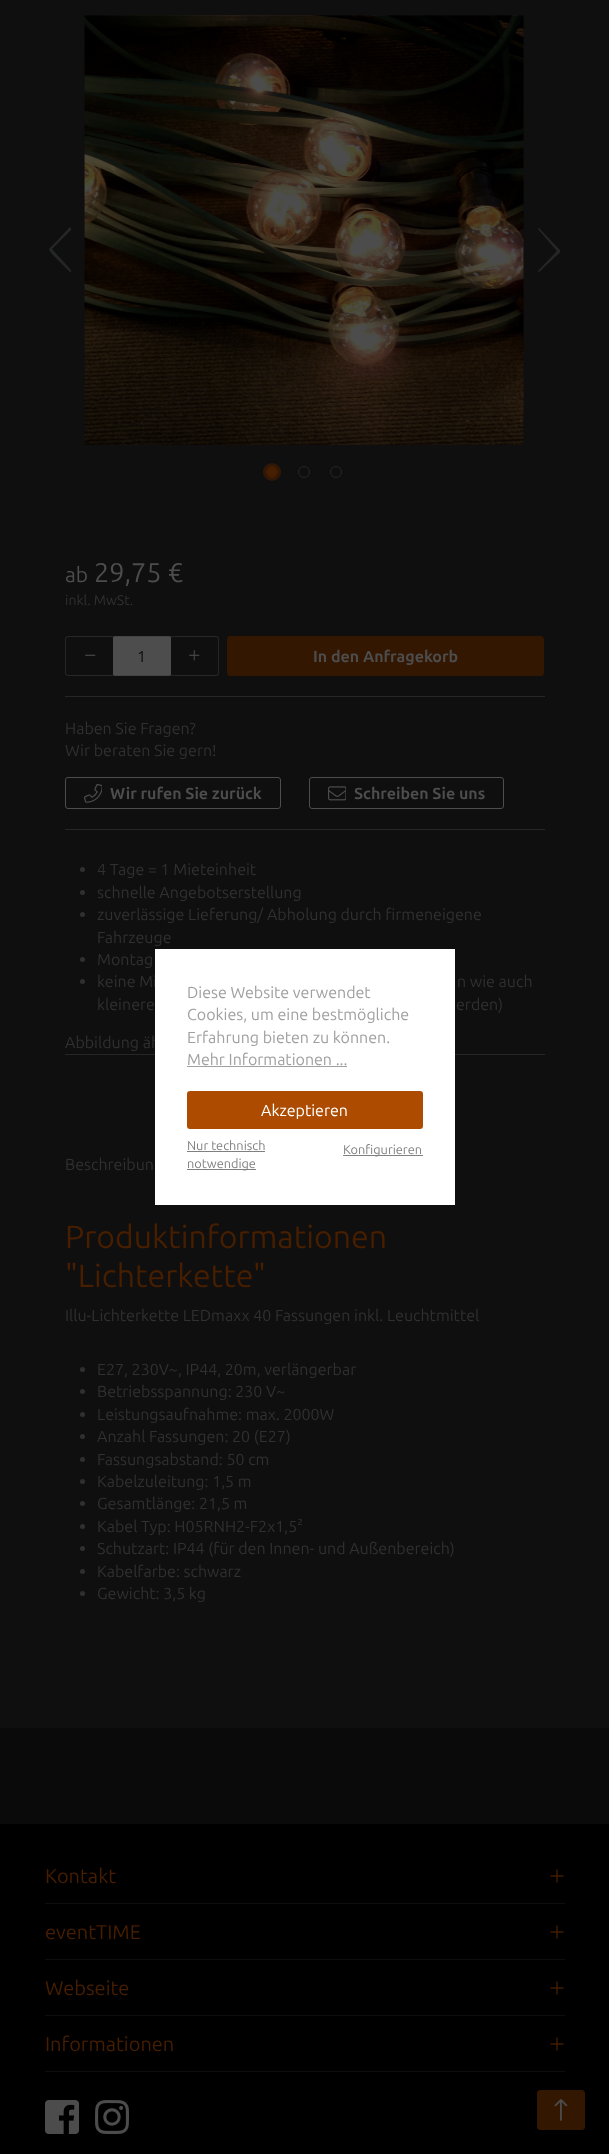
<!DOCTYPE html>
<meta charset="utf-8">
<style>body { margin: 0 } canvas { display: block }</style>
<canvas id="canvas" width="609" height="2154"></canvas>
<script type="module">
  const canvas = document.getElementById("canvas");
  const g = canvas.getContext("2d");
  g.miterLimit = 4;
  g.fontKerning = "normal";
  function drawText(s, x, y, [font, color]) {
    g.font = font;
    g.fillStyle = color;
    g.fillText(s, x, y);
  }
  function fillBox(x, y, w, h, color) {
    g.fillStyle = color;
    g.fillRect(x, y, w, h);
  }
  function fillRounded(x, y, w, h, r, color) {
    g.fillStyle = color;
    g.beginPath();
    g.roundRect(x, y, w, h, r);
    g.fill();
  }
  async function drawPicture(src, x, y, w, h) {
    const img = new Image();
    img.src = src;
    await img.decode();
    g.drawImage(img, x, y, w, h);
  }

  const s1 = ["21px Ubuntu", "#4D4D4D"];
  const s2 = ["27px Ubuntu", "#4D4D4D"];
  const s3 = ["14px Ubuntu", "#303030"];
  const s4 = ["16px Ubuntu", "#0D0D0D"];
  const s5 = ["bold 16px Ubuntu", "#4D4D4D"];
  const s6 = ["16px Ubuntu", "#303030"];
  const s7 = ["32px Ubuntu", "#471E00"];
  const s8 = ["16px Ubuntu", "#A0A0A0"];
  const s9 = ["16px Ubuntu", "#FFFFFF"];
  const s10 = ["12.75px Ubuntu", "#808080"];
  const s11 = ["20px Ubuntu", "#471E00"];

  fillBox(0, 0, 609, 2154, "#000000");
  fillBox(0, 0, 609, 1728, "#0F0F0F");
  await drawPicture("pic1.png", 84, 15, 440, 430);
  g.fillStyle = "#242627";
  g.beginPath();
  g.moveTo(70, 272);
  g.lineTo(52, 254);
  g.bezierCurveTo(48, 248, 48, 250, 53, 245);
  g.lineTo(69, 228);
  g.bezierCurveTo(70, 227, 72, 228, 71, 230);
  g.lineTo(52, 249);
  g.bezierCurveTo(68, 267, 74, 272, 70, 272);
  g.closePath();
  g.fill();
  g.beginPath();
  g.moveTo(539, 228);
  g.lineTo(556, 246);
  g.bezierCurveTo(563, 253, 561, 251, 553, 259);
  g.lineTo(539, 272);
  g.bezierCurveTo(538, 272, 538, 271, 538, 271);
  g.lineTo(557, 251);
  g.lineTo(538, 229);
  g.bezierCurveTo(538, 228, 538, 228, 539, 228);
  g.closePath();
  g.fill();
  g.beginPath();
  g.arc(272, 472, 7.5, 0, Math.PI * 2);
  g.strokeStyle = "#311806";
  g.lineWidth = 3;
  g.stroke();
  g.fillStyle = "#471E00";
  g.beginPath();
  g.arc(272, 472, 5.5, 0, Math.PI * 2);
  g.fill();
  g.strokeStyle = "#471E00";
  g.lineWidth = 1;
  g.stroke();
  g.beginPath();
  g.arc(304, 472, 5.5, 0, Math.PI * 2);
  g.strokeStyle = "#242627";
  g.stroke();
  g.beginPath();
  g.arc(336, 472, 5.5, 0, Math.PI * 2);
  g.stroke();
  drawText("ab", 65, 582, s1);
  drawText("29,75 €", 94, 582, s2);
  drawText("inkl. MwSt.", 65, 605, s3);
  fillBox(113, 637, 58, 38, "#4D4D4D");
  fillBox(113, 636, 58, 1, "#444444");
  fillBox(113, 675, 58, 1, "#444444");
  g.fillStyle = "#242627";
  g.beginPath();
  g.moveTo(68, 636);
  g.lineTo(114, 636);
  g.lineTo(114, 676);
  g.lineTo(68, 676);
  g.bezierCurveTo(66, 676, 65, 675, 65, 673);
  g.lineTo(65, 639);
  g.bezierCurveTo(65, 637, 66, 636, 68, 636);
  g.closePath();
  g.moveTo(68, 637);
  g.lineTo(114, 637);
  g.lineTo(114, 675);
  g.lineTo(68, 675);
  g.bezierCurveTo(67, 675, 66, 674, 66, 673);
  g.lineTo(66, 639);
  g.bezierCurveTo(66, 638, 67, 637, 68, 637);
  g.closePath();
  g.fill("evenodd");
  await drawPicture("pic2.png", 85, 654, 11, 2);
  drawText("1", 137, 662, s4);
  g.fillStyle = "#242627";
  g.beginPath();
  g.moveTo(170, 636);
  g.lineTo(216, 636);
  g.bezierCurveTo(218, 636, 219, 637, 219, 639);
  g.lineTo(219, 673);
  g.bezierCurveTo(219, 675, 218, 676, 216, 676);
  g.lineTo(170, 676);
  g.closePath();
  g.moveTo(170, 637);
  g.lineTo(216, 637);
  g.bezierCurveTo(217, 637, 218, 638, 218, 639);
  g.lineTo(218, 673);
  g.bezierCurveTo(218, 674, 217, 675, 216, 675);
  g.lineTo(170, 675);
  g.closePath();
  g.fill("evenodd");
  await drawPicture("pic3.png", 189, 650, 11, 11);
  g.fillStyle = "#341700";
  g.beginPath();
  g.roundRect(227.5, 636.5, 316, 39, 2.5);
  g.fill();
  g.strokeStyle = "#341700";
  g.stroke();
  drawText("In den Anfragekorb", 313, 662, s5);
  fillBox(65, 696, 480, 1, "#242627");
  fillBox(65, 829, 480, 1, "#242627");
  drawText("Haben Sie Fragen?", 65, 734, s6);
  drawText("Wir beraten Sie gern!", 65, 756, s6);
  g.beginPath();
  g.roundRect(65.5, 777.5, 215, 31, 2.5);
  g.strokeStyle = "#4D4D4D";
  g.stroke();
  await drawPicture("pic4.png", 84, 784, 18, 19);
  drawText("Wir rufen Sie zurück", 110, 799, s5);
  g.beginPath();
  g.roundRect(309.5, 777.5, 194, 31, 2.5);
  g.stroke();
  await drawPicture("pic5.png", 328, 786, 18, 15);
  drawText("Schreiben Sie uns", 354, 799, s5);
  fillBox(65, 1054, 480, 1, "#242627");
  g.fillStyle = "#303030";
  g.beginPath();
  g.arc(82.5, 869.5, 2.5, 0, Math.PI * 2);
  g.fill();
  drawText("4 Tage = 1 Mieteinheit", 97, 875, s6);
  g.beginPath();
  g.arc(82.5, 892.5, 2.5, 0, Math.PI * 2);
  g.fill();
  drawText("schnelle Angebotserstellung", 97, 898, s6);
  g.beginPath();
  g.arc(82.5, 914.5, 2.5, 0, Math.PI * 2);
  g.fill();
  drawText("zuverlässige Lieferung/ Abholung durch firmeneigene", 97, 920, s6);
  drawText("Fahrzeuge", 97, 943, s6);
  g.beginPath();
  g.arc(82.5, 959.5, 2.5, 0, Math.PI * 2);
  g.fill();
  drawText("Montag", 97, 965, s6);
  g.beginPath();
  g.arc(82.5, 981.5, 2.5, 0, Math.PI * 2);
  g.fill();
  drawText("keine Mi", 97, 987, s6);
  drawText("n wie auch", 457, 987, s6);
  drawText("kleinere", 97, 1010, s6);
  drawText("erden)", 456, 1010, s6);
  drawText("Abbildung äh", 65, 1048, s6);
  drawText("Beschreibun", 65, 1170, s6);
  drawText("Produktinformationen", 65, 1248, s7);
  drawText("\"Lichterkette\"", 65, 1287, s7);
  drawText("Illu-Lichterkette LEDmaxx 40 Fassungen inkl. Leuchtmittel", 65, 1321, s6);
  g.beginPath();
  g.arc(82.5, 1369.5, 2.5, 0, Math.PI * 2);
  g.fill();
  drawText("E27, 230V~, IP44, 20m, verlängerbar", 97, 1375, s6);
  g.beginPath();
  g.arc(82.5, 1391.5, 2.5, 0, Math.PI * 2);
  g.fill();
  drawText("Betriebsspannung: 230 V~", 97, 1397, s6);
  g.beginPath();
  g.arc(82.5, 1414.5, 2.5, 0, Math.PI * 2);
  g.fill();
  drawText("Leistungsaufnahme: max. 2000W", 97, 1420, s6);
  g.beginPath();
  g.arc(82.5, 1436.5, 2.5, 0, Math.PI * 2);
  g.fill();
  drawText("Anzahl Fassungen: 20 (E27)", 97, 1442, s6);
  g.beginPath();
  g.arc(82.5, 1459.5, 2.5, 0, Math.PI * 2);
  g.fill();
  drawText("Fassungsabstand: 50 cm", 97, 1465, s6);
  g.beginPath();
  g.arc(82.5, 1481.5, 2.5, 0, Math.PI * 2);
  g.fill();
  drawText("Kabelzuleitung: 1,5 m", 97, 1487, s6);
  g.beginPath();
  g.arc(82.5, 1503.5, 2.5, 0, Math.PI * 2);
  g.fill();
  drawText("Gesamtlänge: 21,5 m", 97, 1509, s6);
  g.beginPath();
  g.arc(82.5, 1526.5, 2.5, 0, Math.PI * 2);
  g.fill();
  drawText("Kabel Typ: H05RNH2-F2x1,5²", 97, 1532, s6);
  g.beginPath();
  g.arc(82.5, 1548.5, 2.5, 0, Math.PI * 2);
  g.fill();
  drawText("Schutzart: IP44 (für den Innen- und Außenbereich)", 97, 1554, s6);
  g.beginPath();
  g.arc(82.5, 1571.5, 2.5, 0, Math.PI * 2);
  g.fill();
  drawText("Kabelfarbe: schwarz", 97, 1577, s6);
  g.beginPath();
  g.arc(82.5, 1593.5, 2.5, 0, Math.PI * 2);
  g.fill();
  drawText("Gewicht: 3,5 kg", 97, 1599, s6);
  fillBox(0, 1728, 609, 96, "#0A0A0A");
  fillBox(155, 949, 300, 256, "#FFFFFF");
  drawText("Diese Website verwendet", 187, 998, s8);
  drawText("Cookies, um eine bestmögliche", 187, 1020, s8);
  drawText("Erfahrung bieten zu können.", 187, 1043, s8);
  drawText("Mehr Informationen ...", 187, 1065, s8);
  fillBox(187, 1066, 160, 1, "#A0A0A0");
  fillRounded(187, 1091, 236, 38, 3, "#AD4B00");
  drawText("Akzeptieren", 261, 1116, s9);
  drawText("Nur technisch", 187, 1150, s10);
  fillBox(187, 1151, 78, 1, "#808080");
  fillBox(187, 1169, 69, 1, "#808080");
  drawText("notwendige", 187, 1168, s10);
  fillBox(343, 1155, 80, 1, "#808080");
  drawText("Konfigurieren", 343, 1154, s10);
  drawText("Kontakt", 45, 1883, s11);
  await drawPicture("pic6.png", 550, 1869, 14, 14);
  fillBox(45, 1903, 520, 1, "#0D0D0D");
  drawText("eventTIME", 45, 1939, s11);
  await drawPicture("pic6.png", 550, 1925, 14, 14);
  fillBox(45, 1959, 520, 1, "#0D0D0D");
  drawText("Webseite", 45, 1995, s11);
  await drawPicture("pic6.png", 550, 1981, 14, 14);
  fillBox(45, 2015, 520, 1, "#0D0D0D");
  drawText("Informationen", 45, 2051, s11);
  await drawPicture("pic6.png", 550, 2037, 14, 14);
  fillBox(45, 2071, 520, 1, "#0D0D0D");
  await drawPicture("pic7.png", 45, 2100, 34, 34);
  await drawPicture("pic8.png", 95, 2100, 34, 34);
  g.fillStyle = "#341700";
  g.beginPath();
  g.roundRect(537.5, 2090.5, 47, 39, 2.5);
  g.fill();
  g.strokeStyle = "#341700";
  g.stroke();
  await drawPicture("pic9.png", 554, 2099, 14, 22);
</script>
